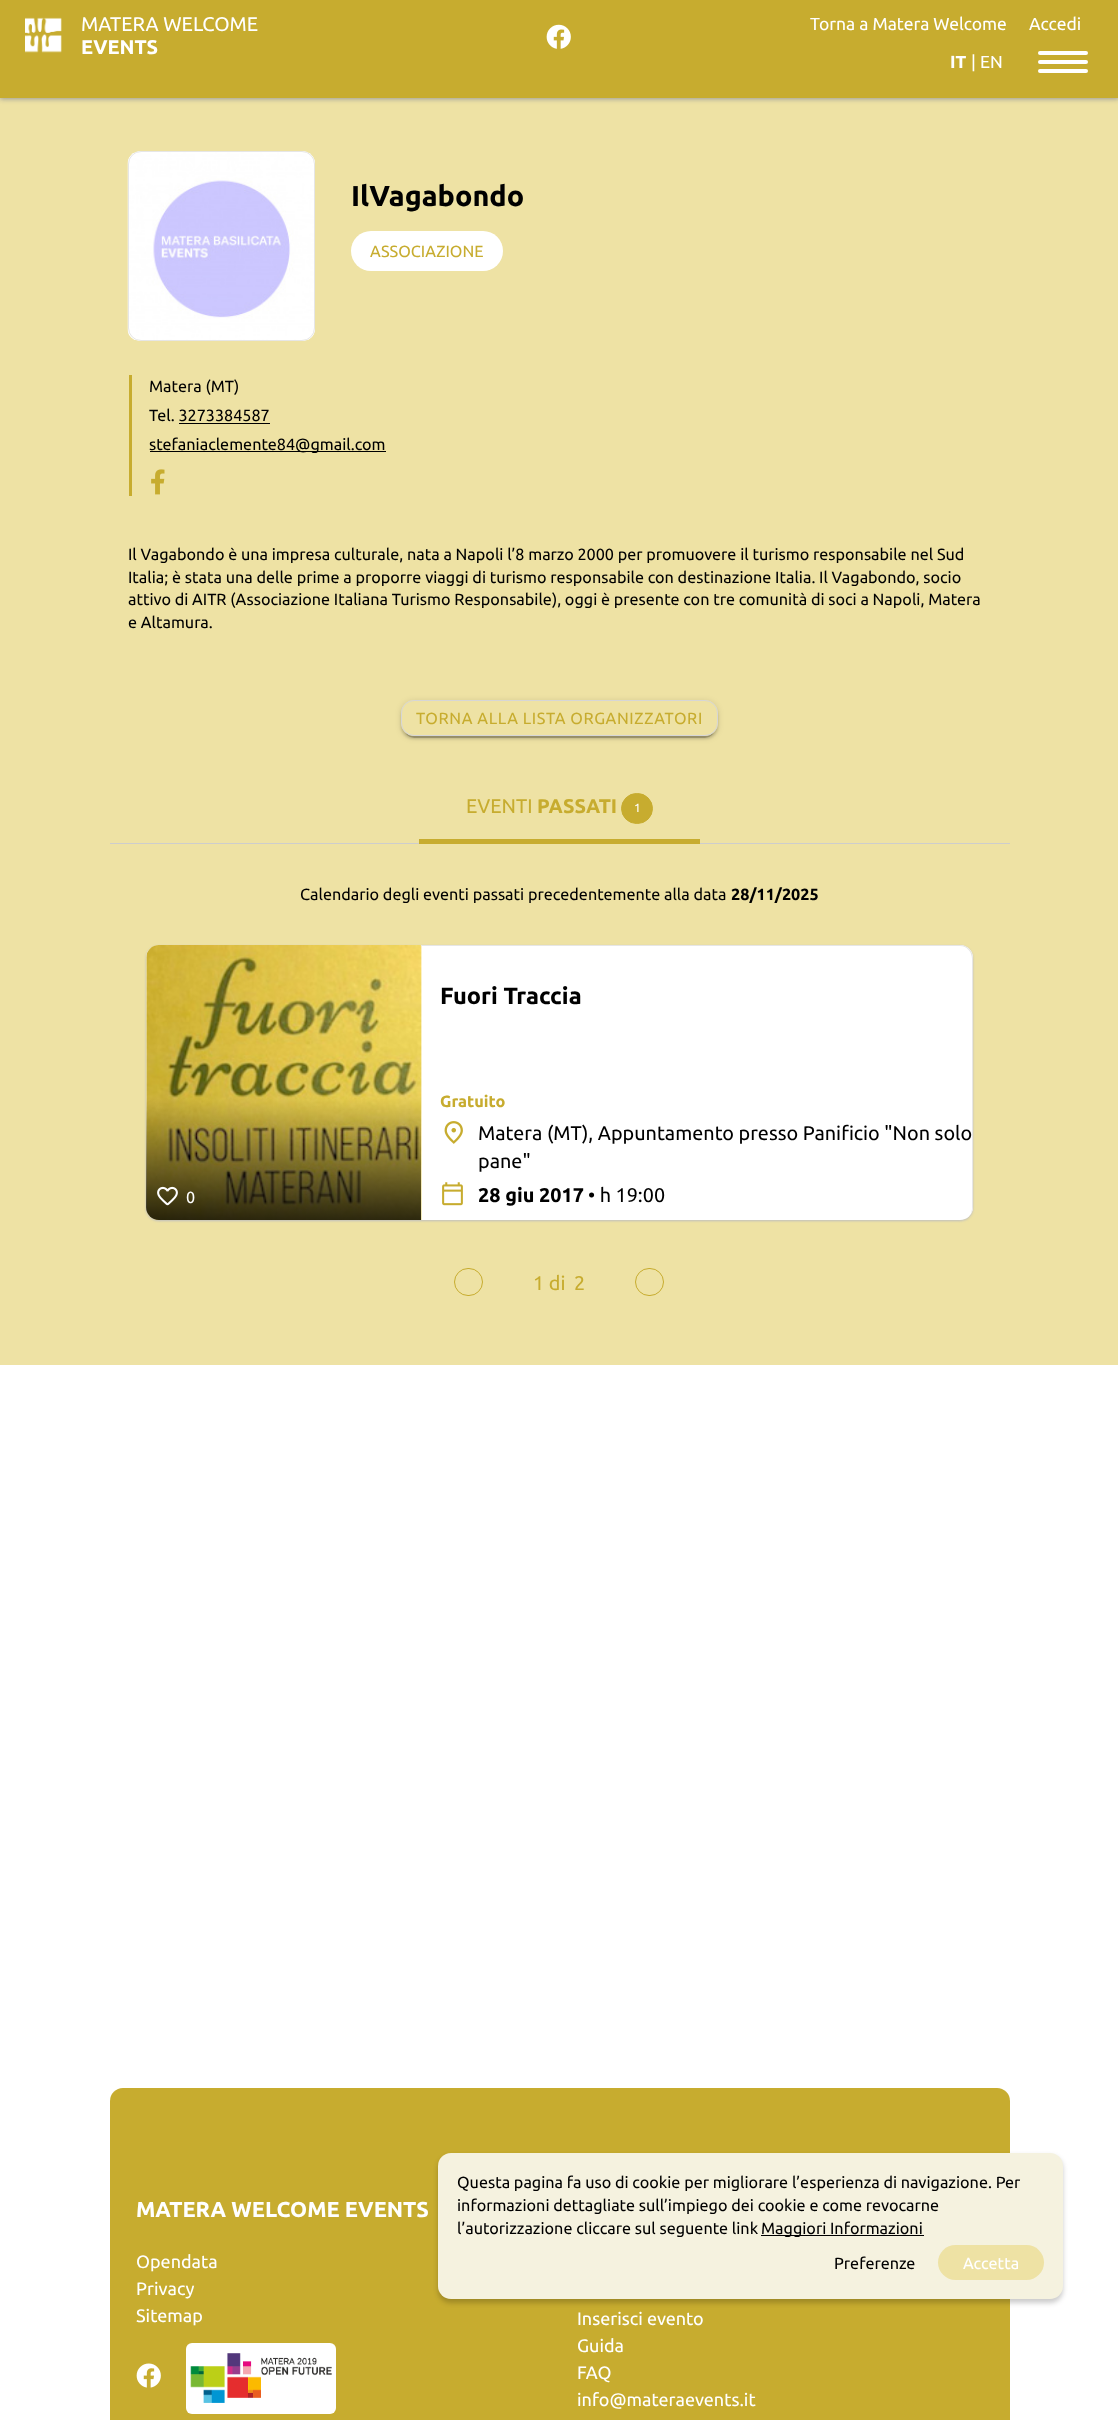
<!DOCTYPE html>
<meta charset="utf-8">
<style>body { margin: 0 } canvas { display: block }</style>
<canvas id="canvas" width="1118" height="2420"></canvas>
<script type="module">
  const canvas = document.getElementById("canvas");
  const g = canvas.getContext("2d");
  g.miterLimit = 4;
  g.fontKerning = "normal";
  function drawText(s, x, y, [font, color]) {
    g.font = font;
    g.fillStyle = color;
    g.fillText(s, x, y);
  }
  function fillBox(x, y, w, h, color) {
    g.fillStyle = color;
    g.fillRect(x, y, w, h);
  }
  function fillRounded(x, y, w, h, r, color) {
    g.fillStyle = color;
    g.beginPath();
    g.roundRect(x, y, w, h, r);
    g.fill();
  }
  async function drawPicture(src, x, y, w, h) {
    const img = new Image();
    img.src = src;
    await img.decode();
    g.drawImage(img, x, y, w, h);
  }
  let gradient;

  const s1 = ["19.8px Ubuntu", "#FFFFFF"];
  const s2 = ["bold 19.8px Ubuntu", "#FFFFFF"];
  const s3 = ["17.5px Ubuntu", "#FFFFFF"];
  const s4 = ["bold 17.5px Ubuntu", "#FFFFFF"];
  const s5 = ["bold 28.75px Ubuntu", "#000000"];
  const s6 = ["16.2px Ubuntu", "#C7AC2F"];
  const s7 = ["16.2px Ubuntu", "#000000"];
  const s8 = ["19.8px Ubuntu", "#C7AC2F"];
  const s9 = ["bold 19.8px Ubuntu", "#C7AC2F"];
  const s10 = ["12px Ubuntu", "#FFFFFF"];
  const s11 = ["bold 16.2px Ubuntu", "#000000"];
  const s12 = ["16.2px Ubuntu", "#FFFFFF"];
  const s13 = ["bold 23.5px Ubuntu", "#000000"];
  const s14 = ["bold 16.25px Ubuntu", "#C7AC2F"];
  const s15 = ["19.8px Ubuntu", "#000000"];
  const s16 = ["bold 19.8px Ubuntu", "#000000"];
  const s17 = ["bold 21.6px Ubuntu", "#FFFFFF"];
  const s18 = ["18px Ubuntu", "#FFFFFF"];

  fillBox(0, 0, 1118, 2420, "#FFFFFF");
  fillBox(0, 98, 1118, 1267, "#EEE2A4");
  g.fillStyle = "#999999";
  g.filter = "blur(2.5px)";
  g.beginPath();
  g.rect(0, 1, 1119, 98);
  g.fill();
  g.filter = "none";
  fillBox(0, 0, 1118, 98, "#C7AC2F");
  await drawPicture("pic1.png", 25, 17, 37, 36);
  drawText("MATERA WELCOME", 81, 31, s1);
  drawText("EVENTS", 81, 54, s2);
  await drawPicture("pic2.png", 546, 24, 25, 25);
  drawText("Torna a Matera Welcome", 810, 30, s3);
  drawText("Accedi", 1029, 30, s3);
  drawText("IT", 950, 68, s4);
  drawText("| EN", 971, 68, s3);
  fillRounded(1038, 51, 50, 4, 2, "#FFFFFF");
  fillRounded(1038, 60, 50, 4, 2, "#FFFFFF");
  fillRounded(1038, 69, 50, 4, 2, "#FFFFFF");
  fillRounded(128, 151, 187, 190, 13, "#FFFFFF");
  await drawPicture("pic3.png", 127, 152, 188, 188);
  g.beginPath();
  g.roundRect(128.5, 151.5, 186, 189, 12.5);
  g.strokeStyle = "#E6E6E6";
  g.stroke();
  drawText("IlVagabondo", 351, 206, s5);
  fillRounded(351, 231, 152, 40, 20, "#FFFFFF");
  drawText("ASSOCIAZIONE", 370, 257, s6);
  fillBox(129, 375, 3, 121, "#C7AC2F");
  drawText("Matera (MT)", 149, 392, s7);
  drawText("Tel. 3273384587", 149, 421, s7);
  fillBox(179, 423, 91, 1, "#000000");
  fillBox(150, 451, 236, 1, "#000000");
  drawText("stefaniaclemente84@gmail.com", 149, 450, s7);
  await drawPicture("pic4.png", 151, 469, 14, 26);
  drawText("Il Vagabondo è una impresa culturale, nata a Napoli l’8 marzo 2000 per promuovere il turismo responsabile nel Sud", 128, 560, s7);
  drawText("Italia; è stata una delle prime a proporre viaggi di turismo responsabile con destinazione Italia. Il Vagabondo, socio", 128, 583, s7);
  drawText("attivo di AITR (Associazione Italiana Turismo Responsabile), oggi è presente con tre comunità di soci a Napoli, Matera", 128, 605, s7);
  drawText("e Altamura.", 128, 628, s7);
  g.save();
  g.beginPath();
  g.moveTo(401, 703);
  g.lineTo(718, 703);
  g.lineTo(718, 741);
  g.lineTo(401, 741);
  g.closePath();
  g.moveTo(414, 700);
  g.lineTo(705, 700);
  g.bezierCurveTo(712, 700, 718, 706, 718, 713);
  g.lineTo(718, 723);
  g.bezierCurveTo(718, 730, 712, 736, 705, 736);
  g.lineTo(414, 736);
  g.bezierCurveTo(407, 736, 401, 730, 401, 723);
  g.lineTo(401, 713);
  g.bezierCurveTo(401, 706, 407, 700, 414, 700);
  g.closePath();
  g.clip("evenodd");
  g.fillStyle = "rgba(0, 0, 0, 0.2)";
  g.filter = "blur(0.5px)";
  g.beginPath();
  g.roundRect(404, 706, 311, 32, 10);
  g.fill();
  g.filter = "none";
  g.restore();
  g.save();
  g.beginPath();
  g.moveTo(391, 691);
  g.lineTo(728, 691);
  g.lineTo(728, 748);
  g.lineTo(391, 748);
  g.closePath();
  g.moveTo(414, 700);
  g.lineTo(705, 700);
  g.bezierCurveTo(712, 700, 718, 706, 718, 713);
  g.lineTo(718, 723);
  g.bezierCurveTo(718, 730, 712, 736, 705, 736);
  g.lineTo(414, 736);
  g.bezierCurveTo(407, 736, 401, 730, 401, 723);
  g.lineTo(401, 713);
  g.bezierCurveTo(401, 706, 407, 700, 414, 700);
  g.closePath();
  g.clip("evenodd");
  g.fillStyle = "rgba(0, 0, 0, 0.12)";
  g.filter = "blur(3px)";
  g.beginPath();
  g.roundRect(401, 701, 317, 37, 13);
  g.fill();
  g.filter = "none";
  g.restore();
  g.save();
  g.beginPath();
  g.moveTo(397, 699);
  g.lineTo(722, 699);
  g.lineTo(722, 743);
  g.lineTo(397, 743);
  g.closePath();
  g.moveTo(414, 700);
  g.lineTo(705, 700);
  g.bezierCurveTo(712, 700, 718, 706, 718, 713);
  g.lineTo(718, 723);
  g.bezierCurveTo(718, 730, 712, 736, 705, 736);
  g.lineTo(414, 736);
  g.bezierCurveTo(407, 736, 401, 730, 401, 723);
  g.lineTo(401, 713);
  g.bezierCurveTo(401, 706, 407, 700, 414, 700);
  g.closePath();
  g.clip("evenodd");
  g.fillStyle = "rgba(0, 0, 0, 0.14)";
  g.filter = "blur(1px)";
  g.beginPath();
  g.roundRect(401, 703, 317, 36, 13);
  g.fill();
  g.filter = "none";
  g.restore();
  g.beginPath();
  g.roundRect(401.5, 700.5, 316, 35, 12.5);
  g.strokeStyle = "#D6D6D6";
  g.stroke();
  g.letterSpacing = "0.6px";
  drawText("TORNA ALLA LISTA ORGANIZZATORI", 416, 724, s6);
  fillBox(110, 843, 900, 1, "#CDCDCD");
  g.letterSpacing = "0px";
  drawText("EVENTI", 466, 813, s8);
  drawText("PASSATI", 537, 813, s9);
  g.beginPath();
  g.roundRect(621.5, 793.5, 31, 30, 15);
  g.fill();
  g.strokeStyle = "#C7AC2F";
  g.stroke();
  drawText("1", 634, 812, s10);
  fillBox(419, 839, 281, 5, "#C7AC2F");
  drawText("Calendario degli eventi passati precedentemente alla data", 300, 900, s7);
  drawText("28/11/2025", 731, 900, s11);
  g.fillStyle = "#BFBFBF";
  g.filter = "blur(1px)";
  g.beginPath();
  g.roundRect(146, 946, 827, 275, 13);
  g.fill();
  g.filter = "none";
  fillRounded(146, 945, 827, 275, 13, "#FFFFFF");
  await drawPicture("pic5.png", 146, 945, 276, 275);
  gradient = g.createLinearGradient(284, 1028, 284, 1220);
  gradient.addColorStop(0, "rgba(0, 0, 0, 0)");
  gradient.addColorStop(0.37, "rgba(0, 0, 0, 0)");
  gradient.addColorStop(1, "rgba(0, 0, 0, 0.8)");
  g.fillStyle = gradient;
  g.beginPath();
  g.roundRect(146, 1028, 275, 192, [0, 0, 0, 13]);
  g.fill();
  await drawPicture("pic6.png", 157, 1186, 21, 20);
  drawText("0", 186, 1203, s12);
  g.fillStyle = "#E6E6E6";
  g.beginPath();
  g.moveTo(421, 945);
  g.lineTo(421, 946);
  g.lineTo(960, 946);
  g.bezierCurveTo(967, 946, 972, 952, 972, 959);
  g.lineTo(972, 1209);
  g.lineTo(971, 1214);
  g.bezierCurveTo(972, 1212, 973, 1209, 973, 1207);
  g.lineTo(973, 958);
  g.bezierCurveTo(973, 951, 967, 945, 960, 945);
  g.closePath();
  g.fill();
  drawText("Fuori Traccia", 440, 1004, s13);
  drawText("Gratuito", 440, 1107, s14);
  await drawPicture("pic7.png", 444, 1121, 19, 23);
  drawText("Matera (MT), Appuntamento presso Panificio \"Non solo", 478, 1140, s15);
  drawText("pane\"", 478, 1168, s15);
  await drawPicture("pic8.png", 442, 1182, 21, 24);
  drawText("28 giu 2017", 478, 1202, s16);
  drawText("• h 19:00", 588, 1202, s15);
  g.beginPath();
  g.roundRect(454.5, 1268.5, 28, 27, 13.5);
  g.stroke();
  g.beginPath();
  g.roundRect(635.5, 1268.5, 28, 27, 13.5);
  g.stroke();
  drawText("1 di", 533, 1290, s8);
  drawText("2", 574, 1290, s8);
  fillRounded(110, 2088, 900, 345, 13, "#C7AC2F");
  drawText("MATERA WELCOME EVENTS", 136, 2217, s17);
  drawText("Opendata", 136, 2268, s18);
  drawText("Privacy", 136, 2295, s18);
  drawText("Sitemap", 136, 2322, s18);
  await drawPicture("pic9.png", 136, 2363, 25, 25);
  fillRounded(186, 2343, 150, 71, 6, "#FFFFFF");
  await drawPicture("pic10.png", 190, 2353, 142, 50);
  drawText("Inserisci evento", 577, 2325, s18);
  drawText("Guida", 577, 2352, s18);
  drawText("FAQ", 577, 2379, s18);
  drawText("info@materaevents.it", 577, 2406, s18);
  g.fillStyle = "rgba(0, 0, 0, 0.2)";
  g.filter = "blur(2.5px)";
  g.beginPath();
  g.roundRect(438, 2156, 625, 147, 13);
  g.fill();
  g.filter = "none";
  fillRounded(438, 2153, 625, 146, 13, "#F5F2DF");
  drawText("Questa pagina fa uso di cookie per migliorare l’esperienza di navigazione. Per", 457, 2188, s7);
  drawText("informazioni dettagliate sull’impiego dei cookie e come revocarne", 457, 2211, s7);
  drawText("l’autorizzazione cliccare sul seguente link", 457, 2234, s7);
  fillBox(761, 2235, 163, 1, "#000000");
  drawText("Maggiori Informazioni", 761, 2234, s7);
  drawText("Preferenze", 834, 2269, s7);
  fillRounded(938, 2245, 106, 35, 17.5, "#EEE2A4");
  drawText("Accetta", 963, 2269, s12);
</script>
